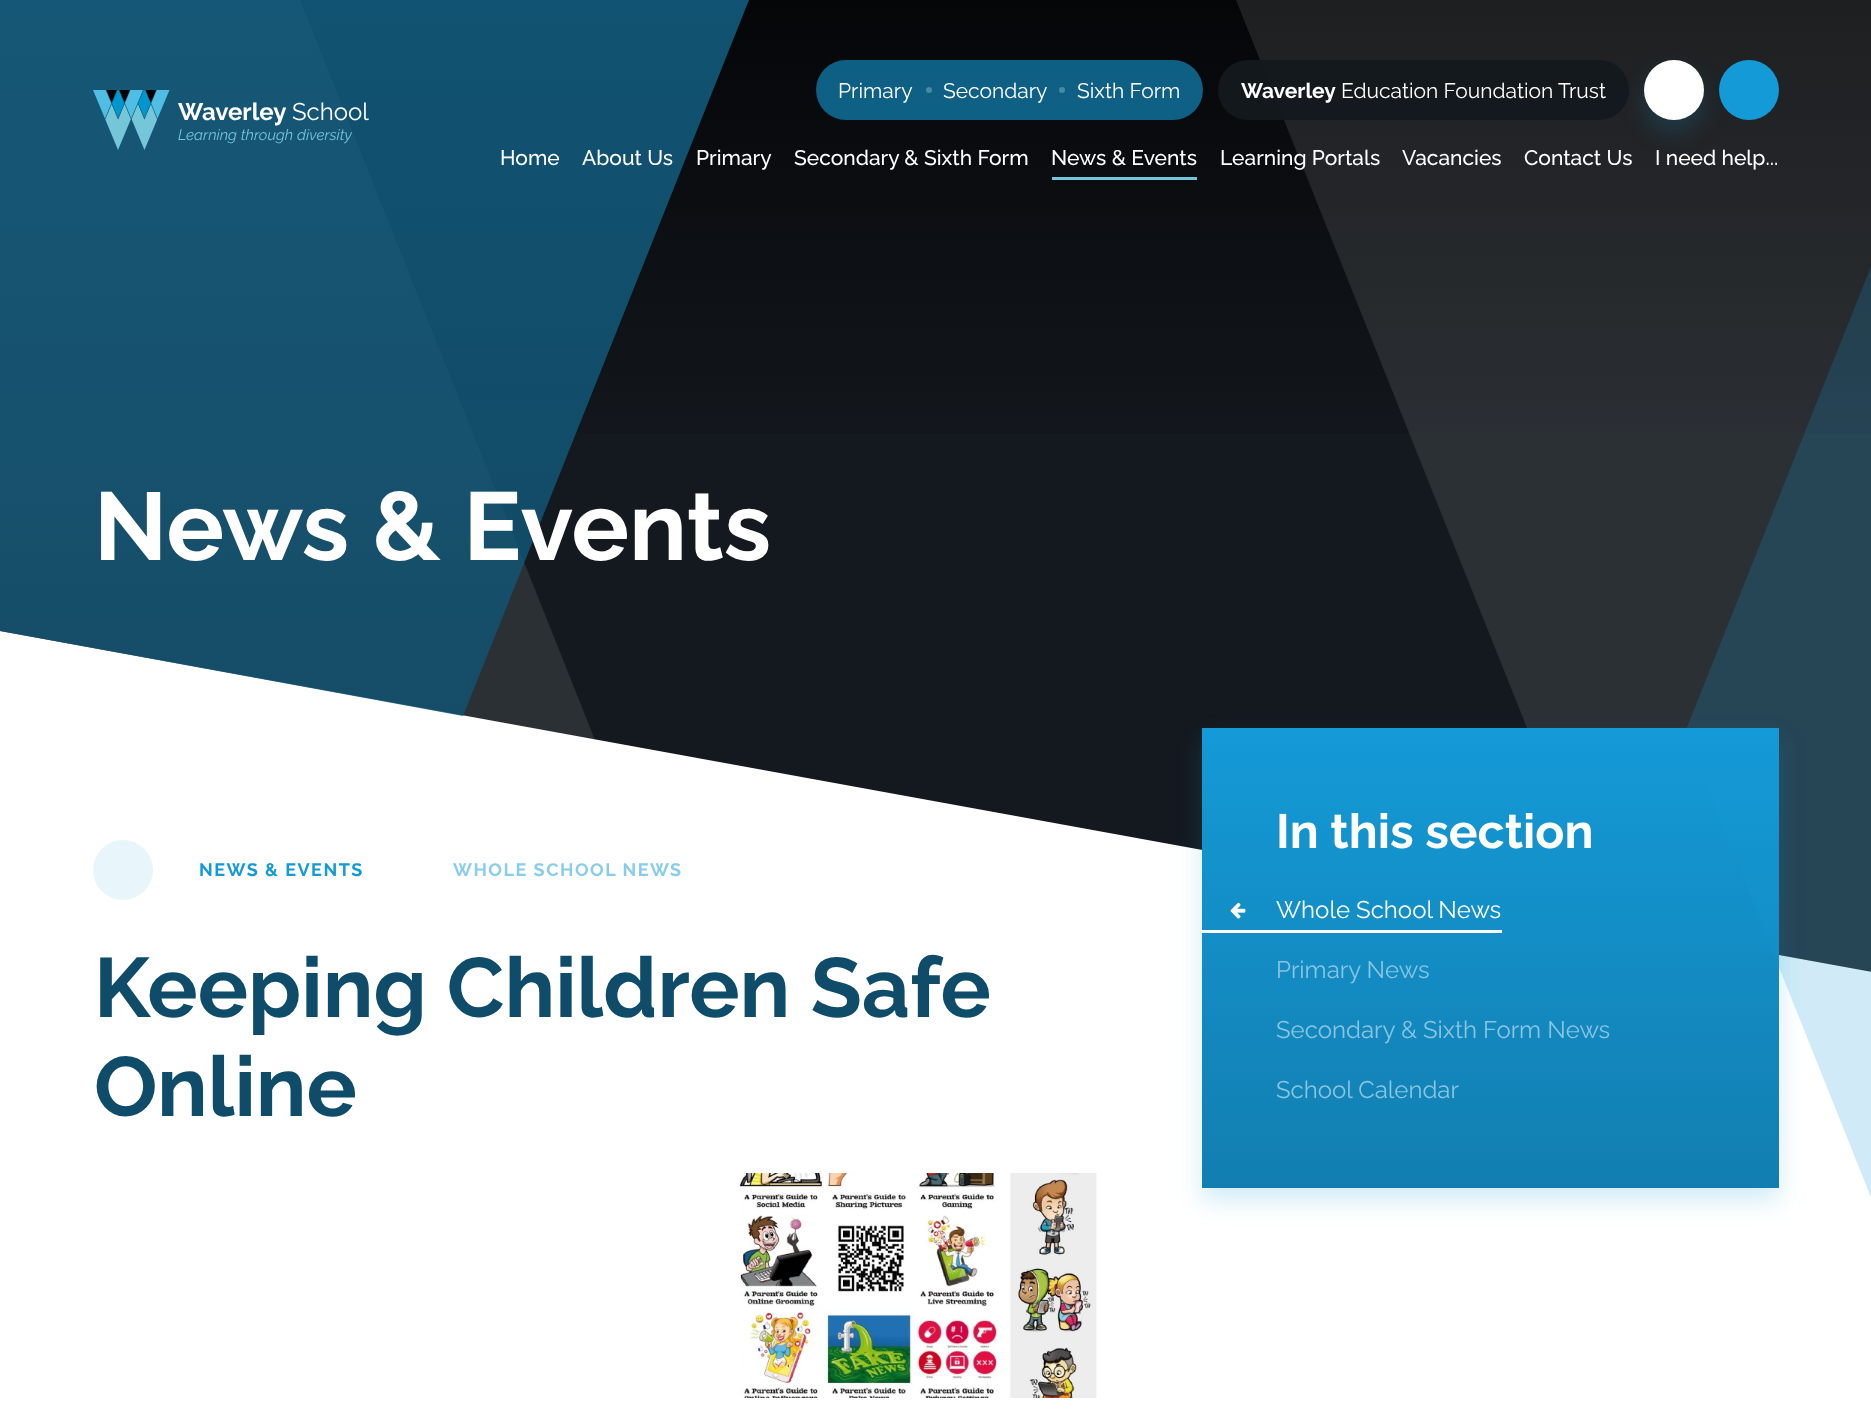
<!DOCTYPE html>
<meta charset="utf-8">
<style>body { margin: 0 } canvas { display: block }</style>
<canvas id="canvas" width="1871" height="1427"></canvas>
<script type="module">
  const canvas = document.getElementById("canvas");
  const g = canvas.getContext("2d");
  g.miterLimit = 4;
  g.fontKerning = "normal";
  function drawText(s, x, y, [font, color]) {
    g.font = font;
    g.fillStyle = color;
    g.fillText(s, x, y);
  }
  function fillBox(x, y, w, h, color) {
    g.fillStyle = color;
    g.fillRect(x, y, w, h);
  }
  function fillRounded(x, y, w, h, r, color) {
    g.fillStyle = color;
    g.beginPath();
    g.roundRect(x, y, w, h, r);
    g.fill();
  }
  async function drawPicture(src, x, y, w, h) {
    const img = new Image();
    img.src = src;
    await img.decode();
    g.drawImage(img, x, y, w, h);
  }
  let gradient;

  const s1 = ["bold 24px Raleway", "#FFFFFF"];
  const s2 = ["24px Raleway", "#FFFFFF"];
  const s3 = ["italic 15px Raleway", "#73C6D9"];
  const s4 = ["21px Raleway", "#FFFFFF"];
  const s5 = ["bold 21px Raleway", "#FFFFFF"];
  const s6 = ["500 21px Raleway", "#FFFFFF"];
  const s7 = ["bold 96px Raleway", "#FFFFFF"];
  const s8 = ["bold 18px Raleway", "#149AD6"];
  const s9 = ["bold 18px Raleway", "#8ACDEB"];
  const s10 = ["bold 84px Raleway", "#0E4C69"];
  const s11 = ["bold 48px Raleway", "#FFFFFF"];
  const s12 = ["24px Raleway", "#89C5E1"];

  fillBox(0, 0, 1871, 1427, "#FFFFFF");
  g.fillStyle = "#14191F";
  g.beginPath();
  g.moveTo(0, 0);
  g.lineTo(0, 631);
  g.lineTo(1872, 972);
  g.lineTo(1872, 0);
  g.closePath();
  g.fill();
  gradient = g.createLinearGradient(936, 0, 936, 486);
  gradient.addColorStop(0, "#050608");
  gradient.addColorStop(1, "#14191F");
  g.fillStyle = gradient;
  g.fillRect(0, 0, 1871, 433);
  g.fillStyle = "rgba(255, 255, 255, 0.1)";
  g.beginPath();
  g.moveTo(0, 0);
  g.lineTo(0, 631);
  g.lineTo(595, 740);
  g.lineTo(300, 0);
  g.closePath();
  g.fill();
  gradient = g.createLinearGradient(0, 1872, 0, -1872);
  gradient.addColorStop(0, "rgba(10, 53, 73, 0.8)");
  gradient.addColorStop(1, "rgba(29, 150, 207, 0.8)");
  g.fillStyle = gradient;
  g.beginPath();
  g.moveTo(0, 0);
  g.lineTo(0, 631);
  g.lineTo(463, 716);
  g.lineTo(749, 0);
  g.closePath();
  g.fill();
  await drawPicture("pic1.png", 93, 90, 77, 60);
  drawText("Waverley", 178, 120, s1);
  drawText("School", 292, 120, s2);
  drawText("Learning through diversity", 178, 140, s3);
  fillRounded(816, 60, 387, 60, 30, "rgba(20, 154, 214, 0.6)");
  drawText("Primary", 838, 98, s4);
  g.fillStyle = "#4B88A4";
  g.beginPath();
  g.arc(929, 90, 3, 0, Math.PI * 2);
  g.fill();
  drawText("Secondary", 943, 98, s4);
  g.fillStyle = "#4B88A4";
  g.beginPath();
  g.arc(1062, 90, 3, 0, Math.PI * 2);
  g.fill();
  drawText("Sixth Form", 1077, 98, s4);
  g.fillStyle = "rgba(255, 255, 255, 0.1)";
  g.beginPath();
  g.moveTo(1605, 923);
  g.lineTo(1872, 972);
  g.lineTo(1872, 0);
  g.lineTo(1236, 0);
  g.closePath();
  g.fill();
  fillRounded(1218, 60, 411, 60, 30, "rgba(20, 25, 31, 0.95)");
  drawText("Waverley", 1241, 98, s5);
  drawText("Education Foundation Trust", 1341, 98, s4);
  g.fillStyle = "rgba(20, 154, 214, 0.2)";
  g.filter = "blur(12px)";
  g.beginPath();
  g.roundRect(1644, 72, 60, 60, 30);
  g.fill();
  g.filter = "none";
  g.fillStyle = "#FFFFFF";
  g.beginPath();
  g.arc(1674, 90, 30, 0, Math.PI * 2);
  g.fill();
  g.fillStyle = "#149AD6";
  g.beginPath();
  g.arc(1749, 90, 30, 0, Math.PI * 2);
  g.fill();
  drawText("Home", 500, 165, s6);
  drawText("About Us", 582, 165, s6);
  drawText("Primary", 696, 165, s6);
  drawText("Secondary & Sixth Form", 794, 165, s6);
  drawText("News & Events", 1051, 165, s6);
  fillBox(1052, 177, 145, 3, "#73C6D9");
  drawText("Learning Portals", 1220, 165, s6);
  drawText("Vacancies", 1402, 165, s6);
  drawText("Contact Us", 1524, 165, s6);
  drawText("I need help...", 1655, 165, s6);
  drawText("News & Events", 94, 560, s7);
  g.fillStyle = "rgba(20, 154, 214, 0.2)";
  g.filter = "blur(12px)";
  g.beginPath();
  g.rect(1202, 740, 577, 460);
  g.fill();
  g.filter = "none";
  gradient = g.createLinearGradient(1490, 728, 1490, 1188);
  gradient.addColorStop(0, "#149AD7");
  gradient.addColorStop(1, "#127EB0");
  g.fillStyle = gradient;
  g.fillRect(1202, 728, 577, 460);
  g.fillStyle = "rgba(20, 154, 214, 0.2)";
  g.beginPath();
  g.moveTo(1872, 264);
  g.lineTo(1685, 732);
  g.lineTo(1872, 1200);
  g.lineTo(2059, 732);
  g.closePath();
  g.fill();
  g.fillStyle = "#E8F5FB";
  g.beginPath();
  g.arc(123, 870, 30, 0, Math.PI * 2);
  g.fill();
  g.letterSpacing = "1.5px";
  drawText("NEWS & EVENTS", 199, 876, s8);
  drawText("WHOLE SCHOOL NEWS", 453, 876, s9);
  g.letterSpacing = "0px";
  drawText("Keeping Children Safe", 94, 1017, s10);
  drawText("Online", 94, 1116, s10);
  await drawPicture("pic2.png", 737, 1173, 360, 225);
  drawText("In this section", 1276, 848, s11);
  await drawPicture("pic3.png", 1230, 902, 16, 17);
  drawText("Whole School News", 1276, 918, s2);
  fillBox(1202, 930, 300, 3, "#FFFFFF");
  drawText("Primary News", 1276, 978, s12);
  drawText("Secondary & Sixth Form News", 1276, 1038, s12);
  drawText("School Calendar", 1276, 1098, s12);
</script>
